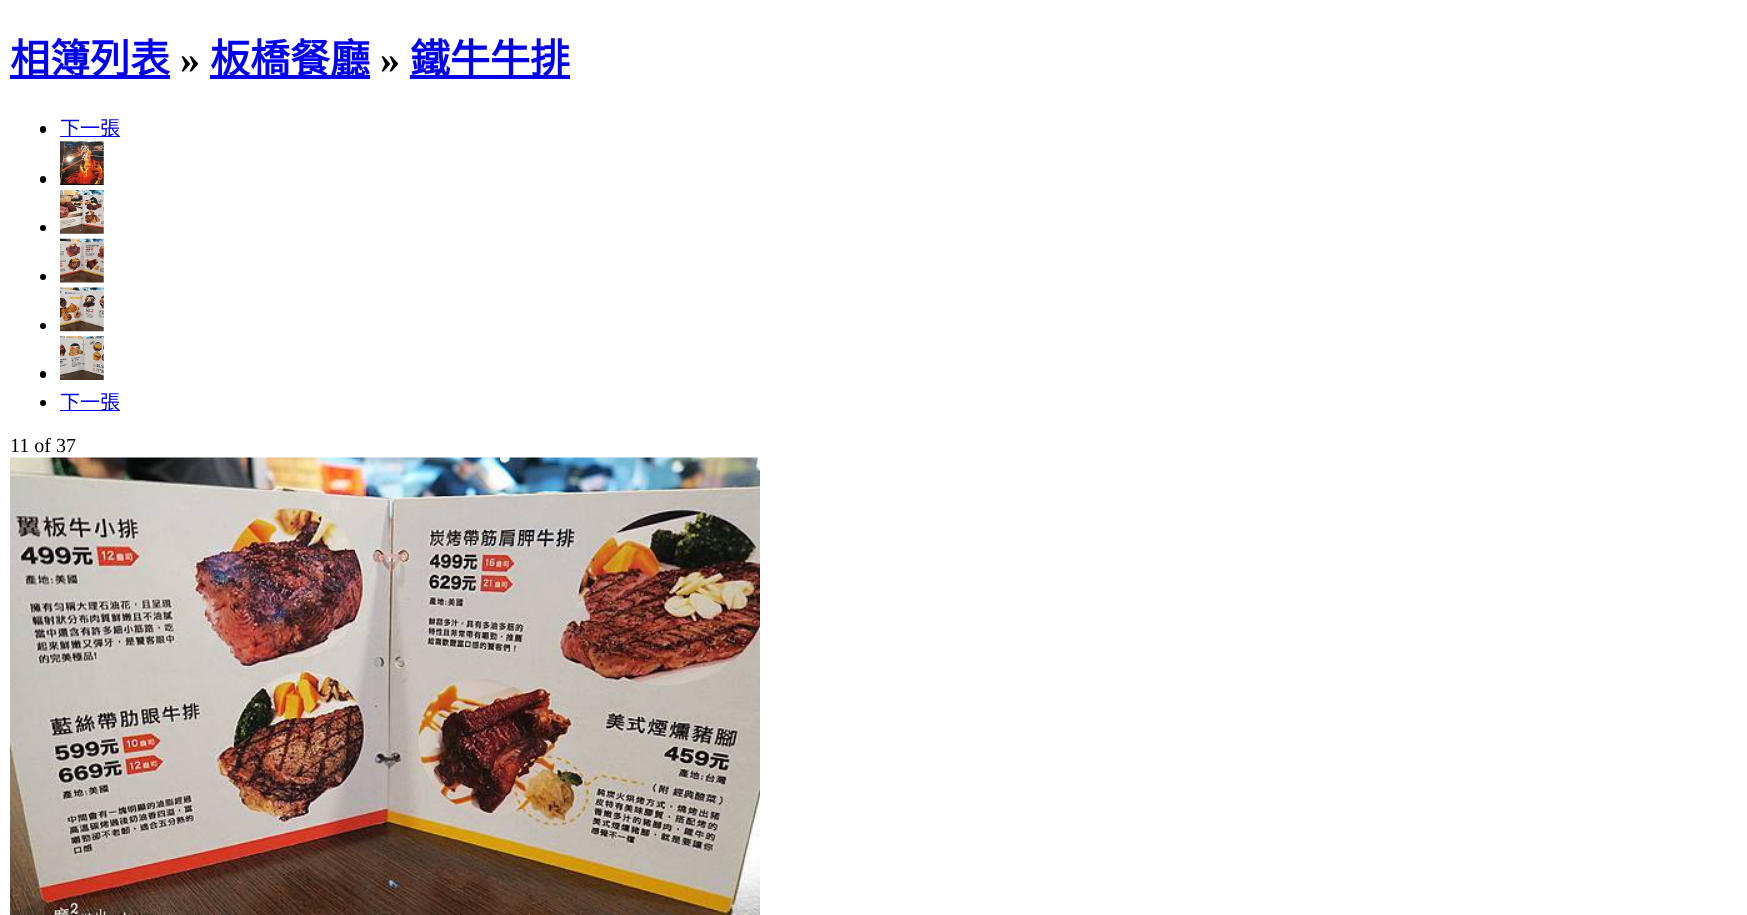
<!DOCTYPE html>
<meta charset="utf-8">
<style>body { margin: 0 } canvas { display: block }</style>
<canvas id="canvas" width="1747" height="915"></canvas>
<script type="module">
  const canvas = document.getElementById("canvas");
  const g = canvas.getContext("2d");
  g.miterLimit = 4;
  g.fontKerning = "normal";
  function drawText(s, x, y, [font, color]) {
    g.font = font;
    g.fillStyle = color;
    g.fillText(s, x, y);
  }
  function fillBox(x, y, w, h, color) {
    g.fillStyle = color;
    g.fillRect(x, y, w, h);
  }
  function fillRounded(x, y, w, h, r, color) {
    g.fillStyle = color;
    g.beginPath();
    g.roundRect(x, y, w, h, r);
    g.fill();
  }
  async function drawPicture(src, x, y, w, h) {
    const img = new Image();
    img.src = src;
    await img.decode();
    g.drawImage(img, x, y, w, h);
  }

  const s1 = ["bold 40px Noto Sans CJK TC", "#0000EE"];
  const s2 = ["bold 40px Liberation Serif", "#000000"];
  const s3 = ["20px Noto Sans CJK TC", "#0000EE"];
  const s4 = ["20px Liberation Serif", "#000000"];

  fillBox(0, 0, 1747, 915, "#FFFFFF");
  fillBox(10, 75, 160, 4, "#0000EE");
  drawText("相簿列表", 10, 73, s1);
  drawText("»", 180, 73, s2);
  fillBox(210, 75, 160, 4, "#0000EE");
  drawText("板橋餐廳", 210, 73, s1);
  drawText("»", 380, 73, s2);
  fillBox(410, 75, 160, 4, "#0000EE");
  drawText("鐵牛牛排", 410, 73, s1);
  fillRounded(40, 126, 6, 7, 3, "#000000");
  fillBox(60, 136, 60, 1, "#0000EE");
  drawText("下一張", 60, 135, s3);
  fillRounded(40, 176, 6, 7, 3, "#000000");
  await drawPicture("pic1.png", 60, 141, 44, 44);
  g.beginPath();
  g.arc(43, 228, 3, 0, Math.PI * 2);
  g.fill();
  await drawPicture("pic2.png", 60, 190, 44, 44);
  g.beginPath();
  g.arc(43, 277, 3, 0, Math.PI * 2);
  g.fill();
  await drawPicture("pic3.png", 60, 238, 44, 45);
  g.beginPath();
  g.arc(43, 326, 3, 0, Math.PI * 2);
  g.fill();
  await drawPicture("pic4.png", 60, 287, 44, 45);
  fillRounded(40, 371, 6, 7, 3, "#000000");
  await drawPicture("pic5.png", 60, 336, 44, 44);
  g.beginPath();
  g.arc(43, 403, 3, 0, Math.PI * 2);
  g.fill();
  fillBox(60, 410, 60, 1, "#0000EE");
  drawText("下一張", 60, 409, s3);
  drawText("11 of 37", 10, 452, s4);
  await drawPicture("pic6.png", 10, 457, 750, 458);
</script>
